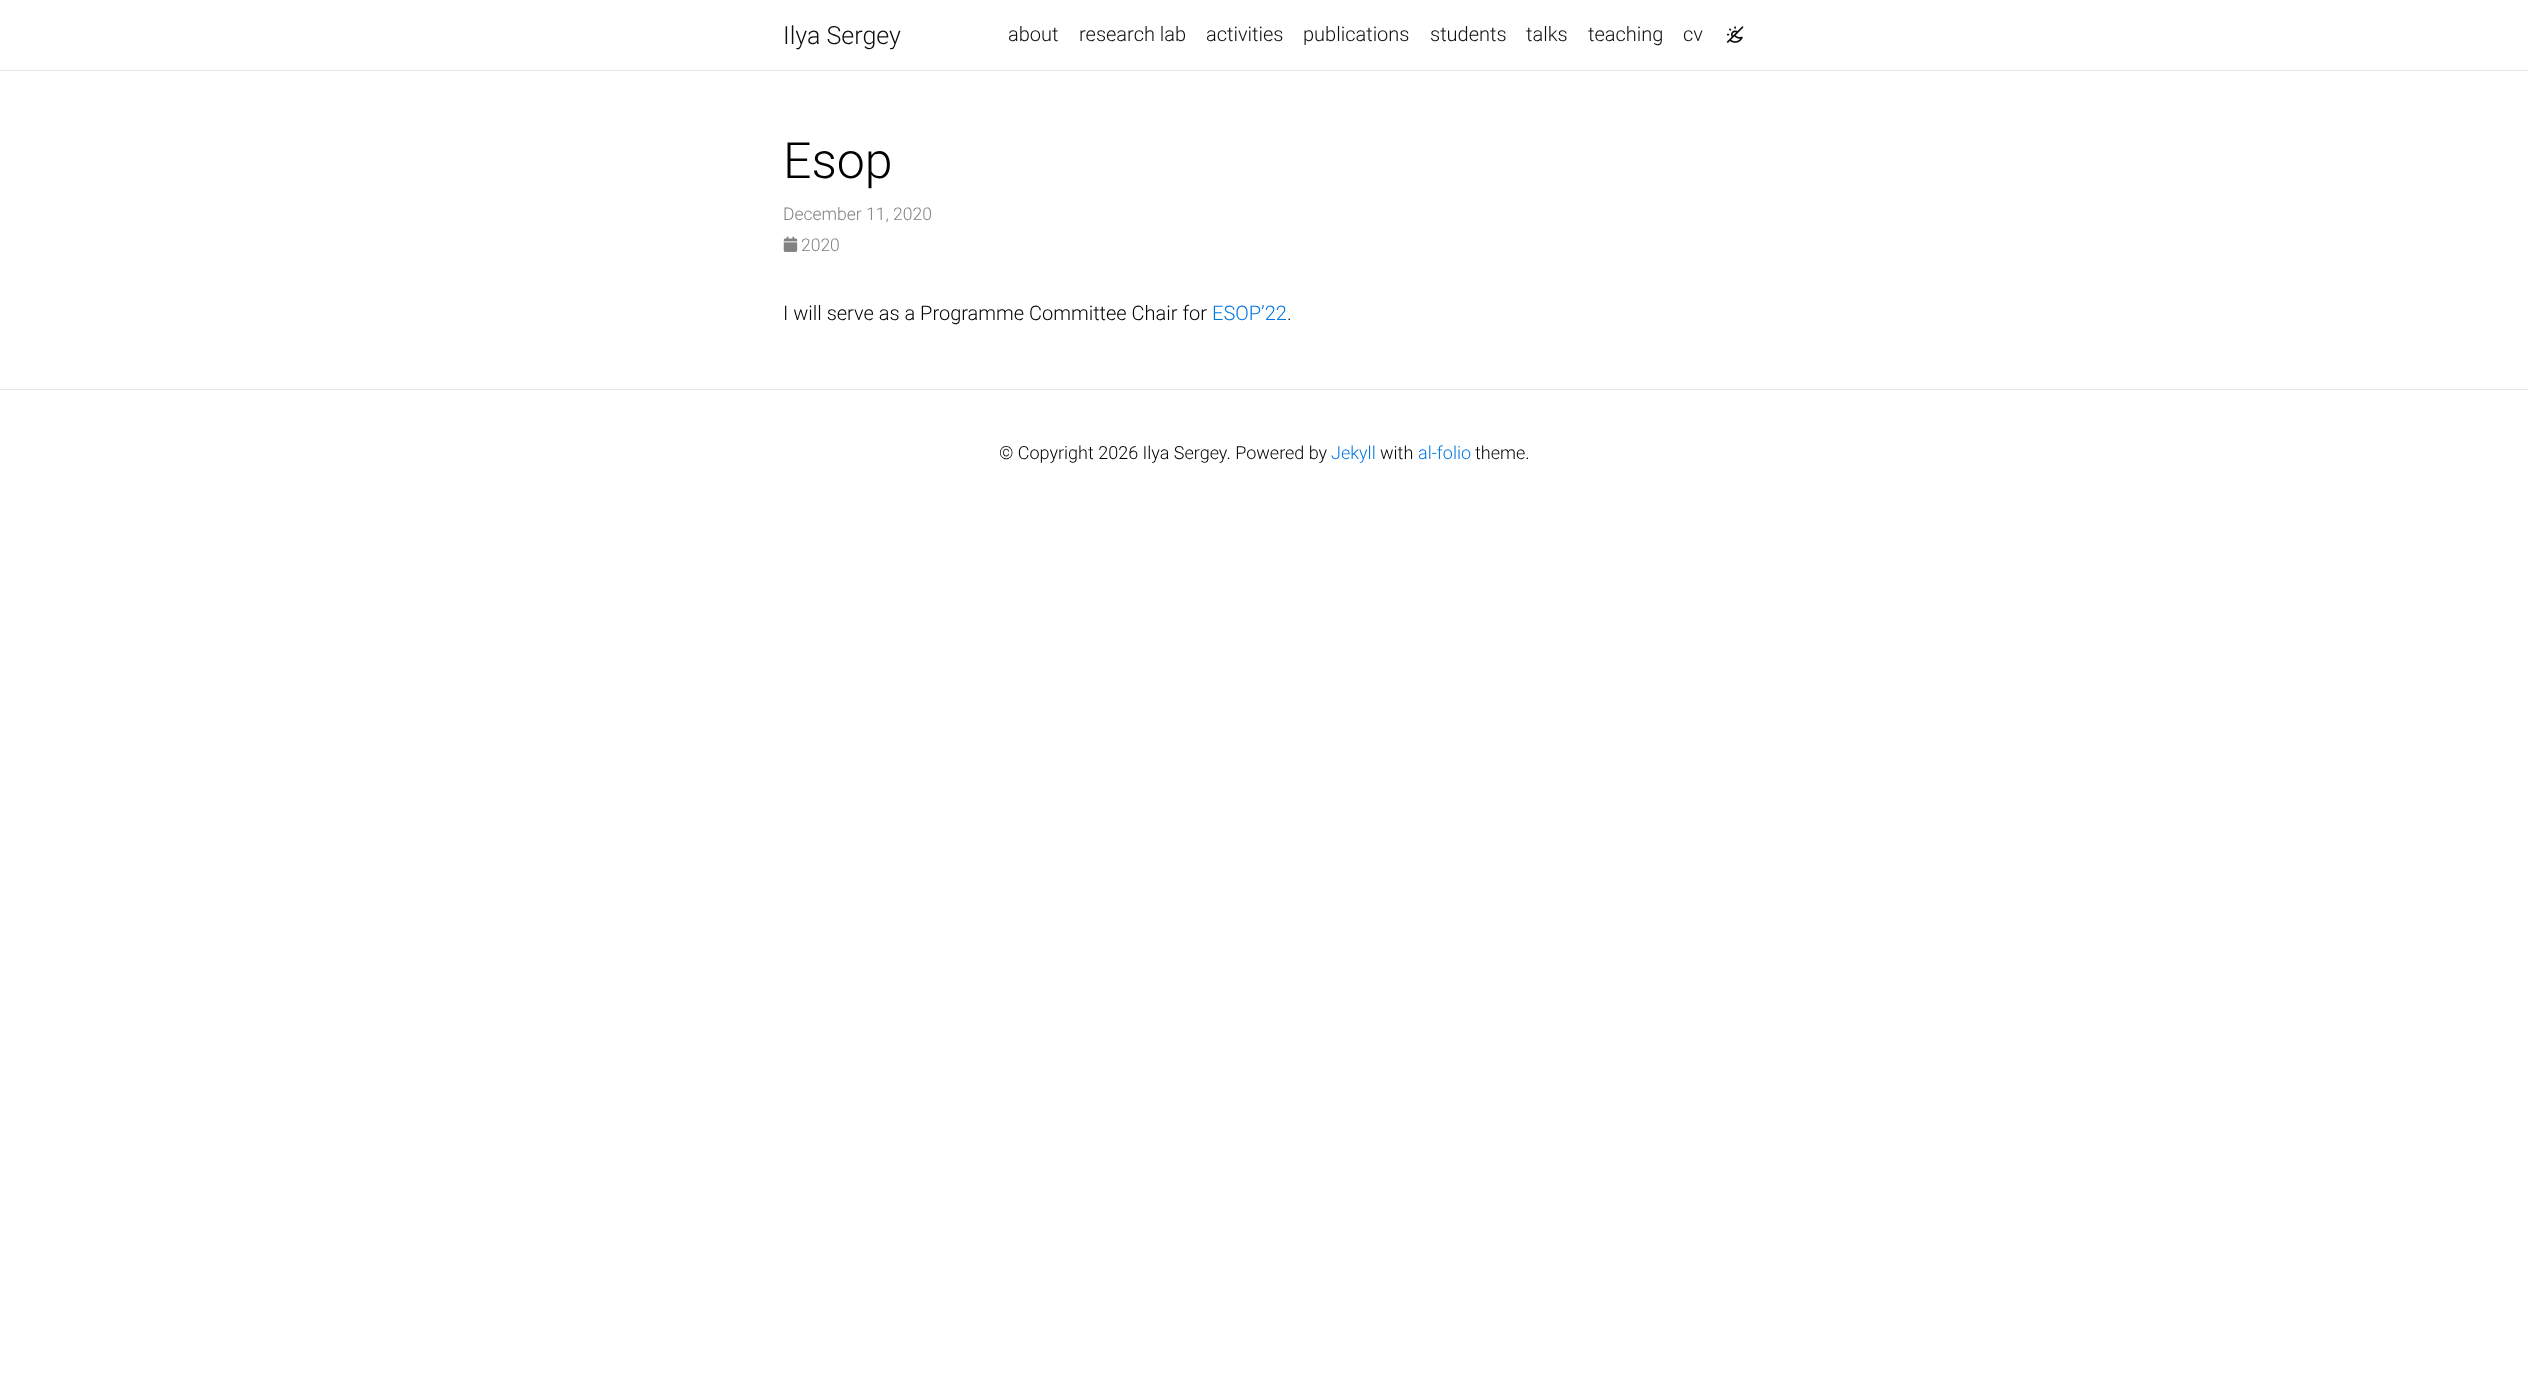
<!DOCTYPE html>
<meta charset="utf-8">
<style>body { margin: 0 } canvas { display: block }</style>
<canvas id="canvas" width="2528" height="1385"></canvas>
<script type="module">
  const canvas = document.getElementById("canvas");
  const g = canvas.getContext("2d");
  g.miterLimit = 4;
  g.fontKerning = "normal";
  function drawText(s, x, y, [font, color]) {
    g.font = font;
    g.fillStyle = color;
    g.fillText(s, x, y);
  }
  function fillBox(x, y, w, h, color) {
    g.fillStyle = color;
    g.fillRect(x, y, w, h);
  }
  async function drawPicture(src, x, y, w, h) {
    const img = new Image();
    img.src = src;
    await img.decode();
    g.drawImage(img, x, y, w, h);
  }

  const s1 = ["300 25px Roboto", "#0D0D0D"];
  const s2 = ["300 20px Roboto", "#0D0D0D"];
  const s3 = ["300 50px Roboto", "#000000"];
  const s4 = ["300 17.5px Roboto", "#828282"];
  const s5 = ["300 20px Roboto", "#000000"];
  const s6 = ["300 20px Roboto", "#0076DF"];
  const s7 = ["300 18px Roboto", "#000000"];
  const s8 = ["300 18px Roboto", "#0076DF"];

  fillBox(0, 0, 2528, 1385, "#FFFFFF");
  fillBox(0, 70, 2528, 1, "#E7E7E7");
  drawText("Ilya Sergey", 783, 44, s1);
  drawText("about", 1008, 41, s2);
  drawText("research lab", 1079, 41, s2);
  drawText("activities", 1206, 41, s2);
  drawText("publications", 1303, 41, s2);
  drawText("students", 1430, 41, s2);
  drawText("talks", 1526, 41, s2);
  drawText("teaching", 1588, 41, s2);
  drawText("cv", 1683, 41, s2);
  await drawPicture("pic1.png", 1726, 26, 18, 17);
  drawText("Esop", 783, 178, s3);
  drawText("December 11, 2020", 783, 220, s4);
  await drawPicture("pic2.png", 783, 236, 15, 16);
  drawText("2020", 801, 251, s4);
  drawText("I will serve as a Programme Committee Chair for", 783, 320, s5);
  drawText("ESOP’22", 1212, 320, s6);
  drawText(".", 1287, 320, s5);
  fillBox(0, 389, 2528, 1, "#E6E6E6");
  drawText("© Copyright 2026 Ilya Sergey. Powered by", 999, 459, s7);
  drawText("Jekyll", 1331, 459, s8);
  drawText("with", 1380, 459, s7);
  drawText("al-folio", 1418, 459, s8);
  drawText("theme.", 1475, 459, s7);
</script>
